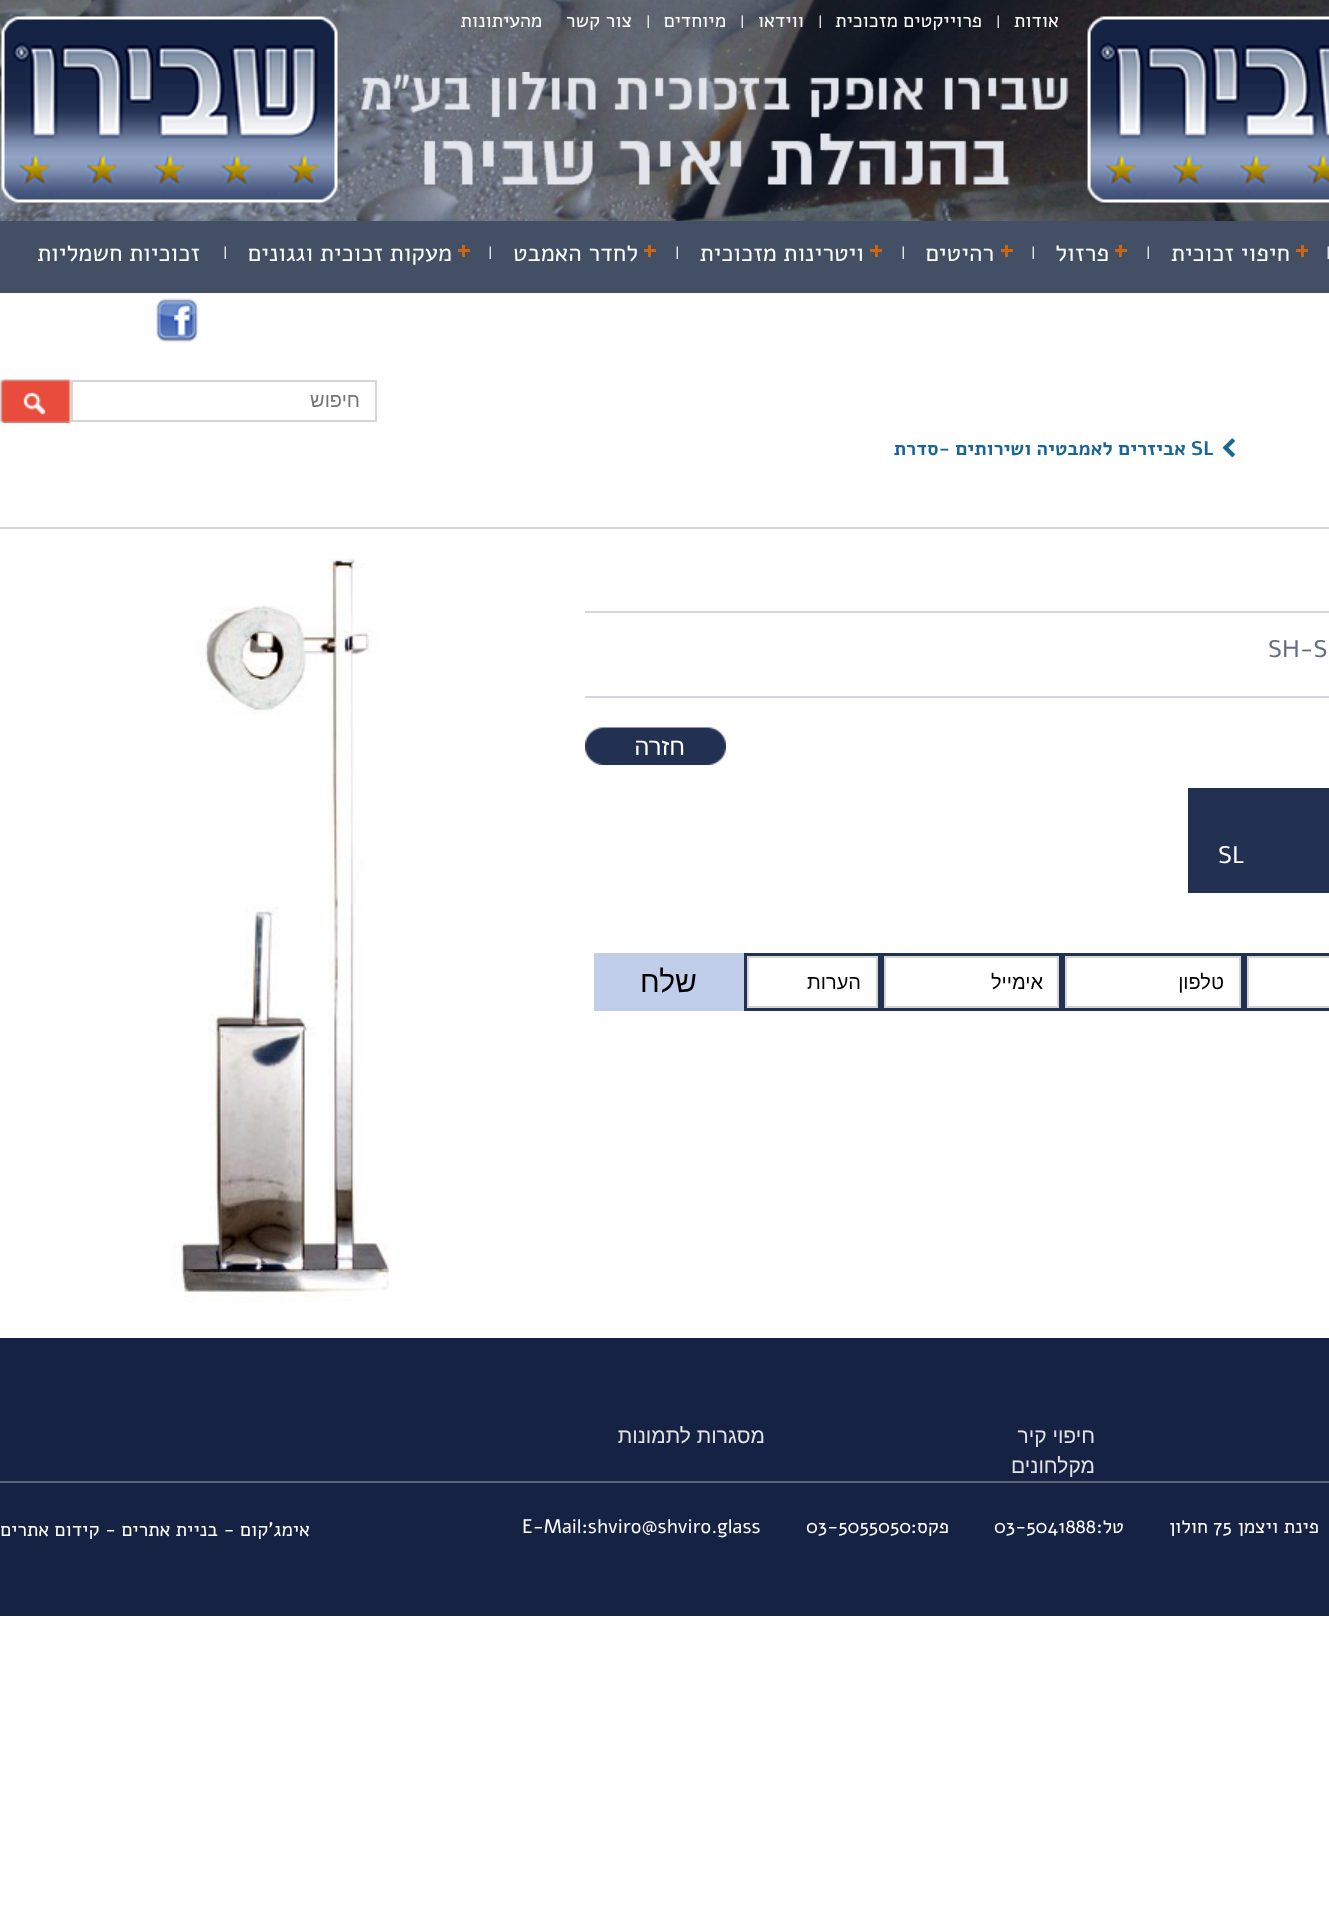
<!DOCTYPE html>
<meta charset="utf-8">
<style>body { margin: 0 } canvas { display: block }</style>
<canvas id="canvas" width="1329" height="1913"></canvas>
<script type="module">
  const canvas = document.getElementById("canvas");
  const g = canvas.getContext("2d");
  g.miterLimit = 4;
  g.fontKerning = "normal";
  function drawText(s, x, y, [font, color]) {
    g.font = font;
    g.fillStyle = color;
    g.fillText(s, x, y);
  }
  function fillBox(x, y, w, h, color) {
    g.fillStyle = color;
    g.fillRect(x, y, w, h);
  }
  async function drawPicture(src, x, y, w, h) {
    const img = new Image();
    img.src = src;
    await img.decode();
    g.drawImage(img, x, y, w, h);
  }

  const s1 = ["19.5px Alef", "#FFFFFF"];
  const s2 = ["15px Alef", "#FFFFFF"];
  const s3 = ["24px Alef", "#FFFFFF"];
  const s4 = ["20px Liberation Sans", "#757575"];
  const s5 = ["bold 19.5px Alef", "#1A6694"];
  const s6 = ["24px Alef", "#656C80"];
  const s7 = ["24px Liberation Sans", "#FFFFFF"];
  const s8 = ["20px Liberation Sans", "#000000"];
  const s9 = ["30px Liberation Sans", "#000000"];
  const s10 = ["21px Liberation Sans", "#E2E2E2"];

  fillBox(0, 0, 1329, 1913, "#FFFFFF");
  await drawPicture("pic1.png", 0, 0, 1329, 221);
  await drawPicture("pic2.png", 1087, 16, 242, 187);
  g.direction = "rtl";
  drawText("אודות", 1059, 27, s1);
  g.direction = "ltr";
  drawText("|", 996, 27, s2);
  g.direction = "rtl";
  drawText("פרוייקטים מזכוכית", 982, 27, s1);
  g.direction = "ltr";
  drawText("|", 818, 27, s2);
  g.direction = "rtl";
  drawText("ווידאו", 804, 27, s1);
  g.direction = "ltr";
  drawText("|", 740, 27, s2);
  g.direction = "rtl";
  drawText("מיוחדים", 726, 27, s1);
  g.direction = "ltr";
  drawText("|", 646, 27, s2);
  g.direction = "rtl";
  drawText("צור קשר", 632, 27, s1);
  drawText("מהעיתונות", 542, 27, s1);
  await drawPicture("pic3.png", 360, 72, 709, 113);
  await drawPicture("pic4.png", 1, 16, 337, 187);
  fillBox(0, 221, 1329, 72, "#434F64");
  g.direction = "ltr";
  drawText("|", 1326, 258, s2);
  fillBox(1301, 245, 3, 12, "#CD6510");
  g.direction = "rtl";
  drawText("חיפוי זכוכית", 1290, 261, s3);
  fillBox(1296, 249, 12, 3, "#CD6510");
  g.direction = "ltr";
  drawText("|", 1146, 258, s2);
  fillBox(1119, 245, 3, 12, "#CD6510");
  g.direction = "rtl";
  drawText("פרזול", 1109, 261, s3);
  fillBox(1115, 249, 12, 3, "#CD6510");
  g.direction = "ltr";
  drawText("|", 1031, 258, s2);
  fillBox(1005, 245, 3, 12, "#CD6510");
  g.direction = "rtl";
  drawText("רהיטים", 994, 261, s3);
  fillBox(1001, 249, 12, 3, "#CD6510");
  g.direction = "ltr";
  drawText("|", 901, 258, s2);
  fillBox(875, 245, 3, 12, "#CD6510");
  g.direction = "rtl";
  drawText("ויטרינות מזכוכית", 864, 261, s3);
  fillBox(870, 249, 12, 3, "#CD6510");
  g.direction = "ltr";
  drawText("|", 675, 258, s2);
  fillBox(648, 245, 3, 12, "#CD6510");
  g.direction = "rtl";
  drawText("לחדר האמבט", 638, 261, s3);
  fillBox(644, 249, 12, 3, "#CD6510");
  g.direction = "ltr";
  drawText("|", 488, 258, s2);
  fillBox(462, 245, 3, 12, "#CD6510");
  g.direction = "rtl";
  drawText("מעקות זכוכית וגגונים", 452, 261, s3);
  fillBox(458, 249, 12, 3, "#CD6510");
  g.direction = "ltr";
  drawText("|", 223, 258, s2);
  g.direction = "rtl";
  drawText("זכוכיות חשמליות", 200, 261, s3);
  await drawPicture("pic5.png", 155, 298, 44, 45);
  g.strokeStyle = "#D6D4D4";
  g.lineWidth = 2;
  g.strokeRect(72, 381, 304, 40);
  drawText("חיפוש", 360, 407, s4);
  await drawPicture("pic6.png", 0, 379, 71, 44);
  await drawPicture("pic7.png", 1222, 438, 13, 20);
  g.direction = "ltr";
  drawText("SL", 1191, 455, s5);
  g.direction = "rtl";
  drawText("אביזרים לאמבטיה ושירותים -סדרת", 1186, 455, s5);
  fillBox(0, 527, 1329, 2, "#D3D6DC");
  fillBox(585, 611, 744, 2, "#D3D6DC");
  fillBox(585, 696, 744, 2, "#D3D6DC");
  g.direction = "ltr";
  drawText("SH-S", 1268, 657, s6);
  await drawPicture("pic8.png", 585, 727, 141, 38);
  g.direction = "rtl";
  drawText("חזרה", 685, 755, s7);
  fillBox(1188, 788, 141, 105, "#223052");
  g.direction = "ltr";
  drawText("SL", 1218, 863, s3);
  g.strokeStyle = "#223052";
  g.lineWidth = 3;
  g.strokeRect(1245.5, 954.5, 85, 55);
  g.strokeStyle = "#D6D4D4";
  g.lineWidth = 2;
  g.strokeRect(1248, 957, 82, 50);
  g.strokeStyle = "#223052";
  g.lineWidth = 3;
  g.strokeRect(1063.5, 954.5, 179, 55);
  g.strokeStyle = "#D6D4D4";
  g.lineWidth = 2;
  g.strokeRect(1066, 957, 174, 50);
  g.direction = "rtl";
  drawText("טלפון", 1224, 989, s8);
  g.strokeStyle = "#223052";
  g.lineWidth = 3;
  g.strokeRect(882.5, 954.5, 178, 55);
  g.strokeStyle = "#D6D4D4";
  g.lineWidth = 2;
  g.strokeRect(885, 957, 173, 50);
  drawText("אימייל", 1043, 989, s8);
  g.strokeStyle = "#223052";
  g.lineWidth = 3;
  g.strokeRect(745.5, 954.5, 134, 55);
  g.strokeStyle = "#D6D4D4";
  g.lineWidth = 2;
  g.strokeRect(748, 957, 129, 50);
  drawText("הערות", 861, 989, s8);
  fillBox(594, 953, 150, 58, "#C0CEEA");
  drawText("שלח", 697, 992, s9);
  await drawPicture("pic9.png", 173, 558, 228, 744);
  fillBox(0, 1338, 1329, 278, "#152244");
  fillBox(0, 1481, 1329, 2, "#5C657B");
  drawText("חיפוי קיר", 1095, 1443, s10);
  drawText("מסגרות לתמונות", 765, 1443, s10);
  drawText("מקלחונים", 1095, 1473, s10);
  drawText("פינת ויצמן", 1319, 1533, s1);
  g.direction = "ltr";
  drawText("75", 1213, 1533, s1);
  g.direction = "rtl";
  drawText("חולון", 1208, 1533, s1);
  drawText("טל:", 1124, 1533, s1);
  g.direction = "ltr";
  drawText("03-5041888", 994, 1533, s1);
  g.direction = "rtl";
  drawText("פקס:", 949, 1533, s1);
  g.direction = "ltr";
  drawText("03-5055050", 806, 1533, s1);
  drawText("E-Mail:shviro@shviro.glass", 522, 1533, s1);
  g.direction = "rtl";
  drawText("אימג'קום - בניית אתרים", 310, 1536, s1);
  drawText("- קידום אתרים", 116, 1536, s1);
</script>
